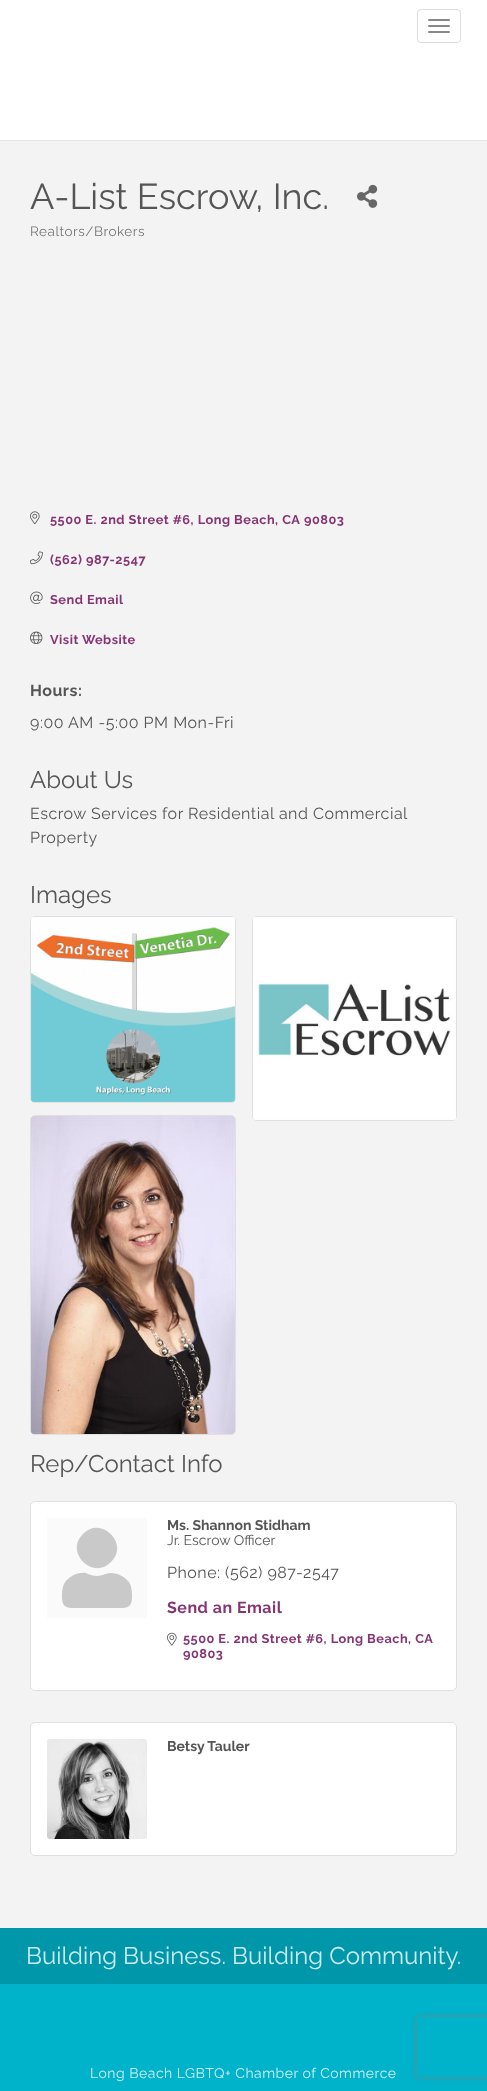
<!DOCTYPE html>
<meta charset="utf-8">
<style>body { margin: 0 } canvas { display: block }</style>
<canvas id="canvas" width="487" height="2091"></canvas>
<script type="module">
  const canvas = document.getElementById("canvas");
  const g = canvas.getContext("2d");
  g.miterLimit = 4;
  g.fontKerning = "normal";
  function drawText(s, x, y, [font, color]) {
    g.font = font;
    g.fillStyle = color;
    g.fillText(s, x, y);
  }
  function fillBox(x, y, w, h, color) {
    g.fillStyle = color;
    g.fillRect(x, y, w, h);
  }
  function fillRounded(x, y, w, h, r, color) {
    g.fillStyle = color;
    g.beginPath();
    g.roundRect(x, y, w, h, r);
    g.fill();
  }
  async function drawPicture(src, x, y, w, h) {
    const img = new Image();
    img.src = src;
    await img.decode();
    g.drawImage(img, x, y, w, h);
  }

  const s1 = ["36px Raleway", "#555555"];
  const s2 = ["13.5px Raleway", "#757575"];
  const s3 = ["bold 12.75px Raleway", "#863573"];
  const s4 = ["bold 16px Raleway", "#555555"];
  const s5 = ["16px Raleway", "#555555"];
  const s6 = ["24px Raleway", "#555555"];
  const s7 = ["bold 14px Raleway", "#555555"];
  const s8 = ["14px Raleway", "#555555"];
  const s9 = ["bold 16px Raleway", "#863573"];
  const s10 = ["24px Raleway", "#CCEAEE"];
  const s11 = ["14px Raleway", "#CCF0F4"];

  fillBox(0, 0, 487, 2091, "#F3F3F3");
  fillBox(0, 0, 487, 140, "#FFFFFF");
  fillBox(0, 140, 487, 1, "#E6E6E6");
  g.beginPath();
  g.roundRect(417.5, 9.5, 43, 33, 3.5);
  g.strokeStyle = "#DDDDDD";
  g.stroke();
  fillRounded(428, 19, 22, 2, 1, "#888888");
  fillRounded(428, 25, 22, 2, 1, "#888888");
  fillRounded(428, 31, 22, 2, 1, "#888888");
  drawText("A-List Escrow, Inc.", 30, 209, s1);
  await drawPicture("pic1.png", 357, 184, 21, 24);
  g.letterSpacing = "0.5px";
  drawText("Realtors/Brokers", 30, 236, s2);
  await drawPicture("pic2.png", 30, 511, 10, 14);
  drawText("5500 E. 2nd Street #6, Long Beach, CA", 50, 524, s3);
  drawText("90803", 304, 524, s3);
  await drawPicture("pic3.png", 30, 551, 13, 14);
  drawText("(562) 987-2547", 50, 564, s3);
  await drawPicture("pic4.png", 30, 591, 13, 13);
  drawText("Send Email", 50, 604, s3);
  await drawPicture("pic5.png", 30, 631, 13, 13);
  drawText("Visit Website", 50, 644, s3);
  drawText("Hours:", 30, 696, s4);
  drawText("9:00 AM -5:00 PM Mon-Fri", 30, 728, s5);
  g.letterSpacing = "0px";
  drawText("About Us", 30, 788, s6);
  g.letterSpacing = "0.5px";
  drawText("Escrow Services for Residential and Commercial", 30, 819, s5);
  drawText("Property", 30, 843, s5);
  g.letterSpacing = "0px";
  drawText("Images", 30, 903, s6);
  fillRounded(30, 916, 206, 187, 5, "#FFFFFF");
  g.beginPath();
  g.roundRect(30.5, 916.5, 205, 186, 4.5);
  g.strokeStyle = "rgba(0, 0, 0, 0.12)";
  g.stroke();
  await drawPicture("pic6.png", 31, 917, 204, 185);
  fillRounded(252, 916, 205, 205, 5, "#FFFFFF");
  g.beginPath();
  g.roundRect(252.5, 916.5, 204, 204, 4.5);
  g.stroke();
  await drawPicture("pic7.png", 253, 917, 203, 203);
  fillRounded(30, 1115, 206, 320, 5, "#FFFFFF");
  g.beginPath();
  g.roundRect(30.5, 1115.5, 205, 319, 4.5);
  g.stroke();
  await drawPicture("pic8.png", 31, 1116, 204, 318);
  drawText("Rep/Contact Info", 30, 1472, s6);
  fillRounded(30, 1501, 427, 190, 5, "#FFFFFF");
  g.beginPath();
  g.roundRect(30.5, 1501.5, 426, 189, 4.5);
  g.stroke();
  fillBox(47, 1518, 100, 100, "#FAFAFA");
  g.fillStyle = "#C9C9C9";
  g.beginPath();
  g.moveTo(111, 1562);
  g.bezierCurveTo(93, 1581, 64, 1552, 83, 1534);
  g.bezierCurveTo(101, 1515, 130, 1544, 111, 1562);
  g.closePath();
  g.moveTo(111, 1573);
  g.bezierCurveTo(118, 1573, 125, 1577, 129, 1582);
  g.bezierCurveTo(132, 1587, 132, 1592, 132, 1597);
  g.bezierCurveTo(132, 1609, 126, 1608, 115, 1608);
  g.lineTo(79, 1608);
  g.bezierCurveTo(68, 1608, 62, 1609, 62, 1597);
  g.bezierCurveTo(62, 1593, 62, 1588, 64, 1584);
  g.bezierCurveTo(68, 1577, 77, 1572, 86, 1573);
  g.lineTo(88, 1574);
  g.bezierCurveTo(91, 1575, 94, 1576, 97, 1576);
  g.bezierCurveTo(102, 1576, 106, 1573, 111, 1573);
  g.closePath();
  g.fill();
  drawText("Ms. Shannon Stidham", 167, 1530, s7);
  drawText("Jr. Escrow Officer", 167, 1545, s8);
  g.letterSpacing = "0.5px";
  drawText("Phone: (562) 987-2547", 167, 1578, s5);
  drawText("Send an Email", 167, 1613, s9);
  await drawPicture("pic9.png", 167, 1632, 10, 14);
  drawText("5500 E. 2nd Street #6, Long Beach, CA", 183, 1643, s3);
  drawText("90803", 183, 1658, s3);
  fillRounded(30, 1722, 427, 134, 5, "#FFFFFF");
  g.beginPath();
  g.roundRect(30.5, 1722.5, 426, 133, 4.5);
  g.stroke();
  await drawPicture("pic10.png", 47, 1739, 100, 100);
  g.letterSpacing = "0px";
  drawText("Betsy Tauler", 167, 1751, s7);
  fillBox(0, 1928, 487, 56, "#0097AB");
  drawText("Building Business. Building Community.", 26, 1964, s10);
  fillBox(0, 1984, 487, 107, "#00B2CA");
  g.letterSpacing = "0.5px";
  drawText("Long Beach LGBTQ+ Chamber of Commerce", 90, 2078, s11);
  g.save();
  g.beginPath();
  g.moveTo(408, 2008);
  g.lineTo(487, 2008);
  g.lineTo(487, 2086);
  g.lineTo(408, 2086);
  g.closePath();
  g.moveTo(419, 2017);
  g.lineTo(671, 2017);
  g.bezierCurveTo(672, 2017, 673, 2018, 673, 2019);
  g.lineTo(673, 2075);
  g.bezierCurveTo(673, 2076, 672, 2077, 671, 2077);
  g.lineTo(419, 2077);
  g.bezierCurveTo(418, 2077, 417, 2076, 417, 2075);
  g.lineTo(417, 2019);
  g.bezierCurveTo(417, 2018, 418, 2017, 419, 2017);
  g.closePath();
  g.clip("evenodd");
  g.fillStyle = "#808080";
  g.filter = "blur(2.5px)";
  g.beginPath();
  g.roundRect(417, 2017, 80, 60, 2);
  g.fill();
  g.filter = "none";
  g.restore();
</script>
